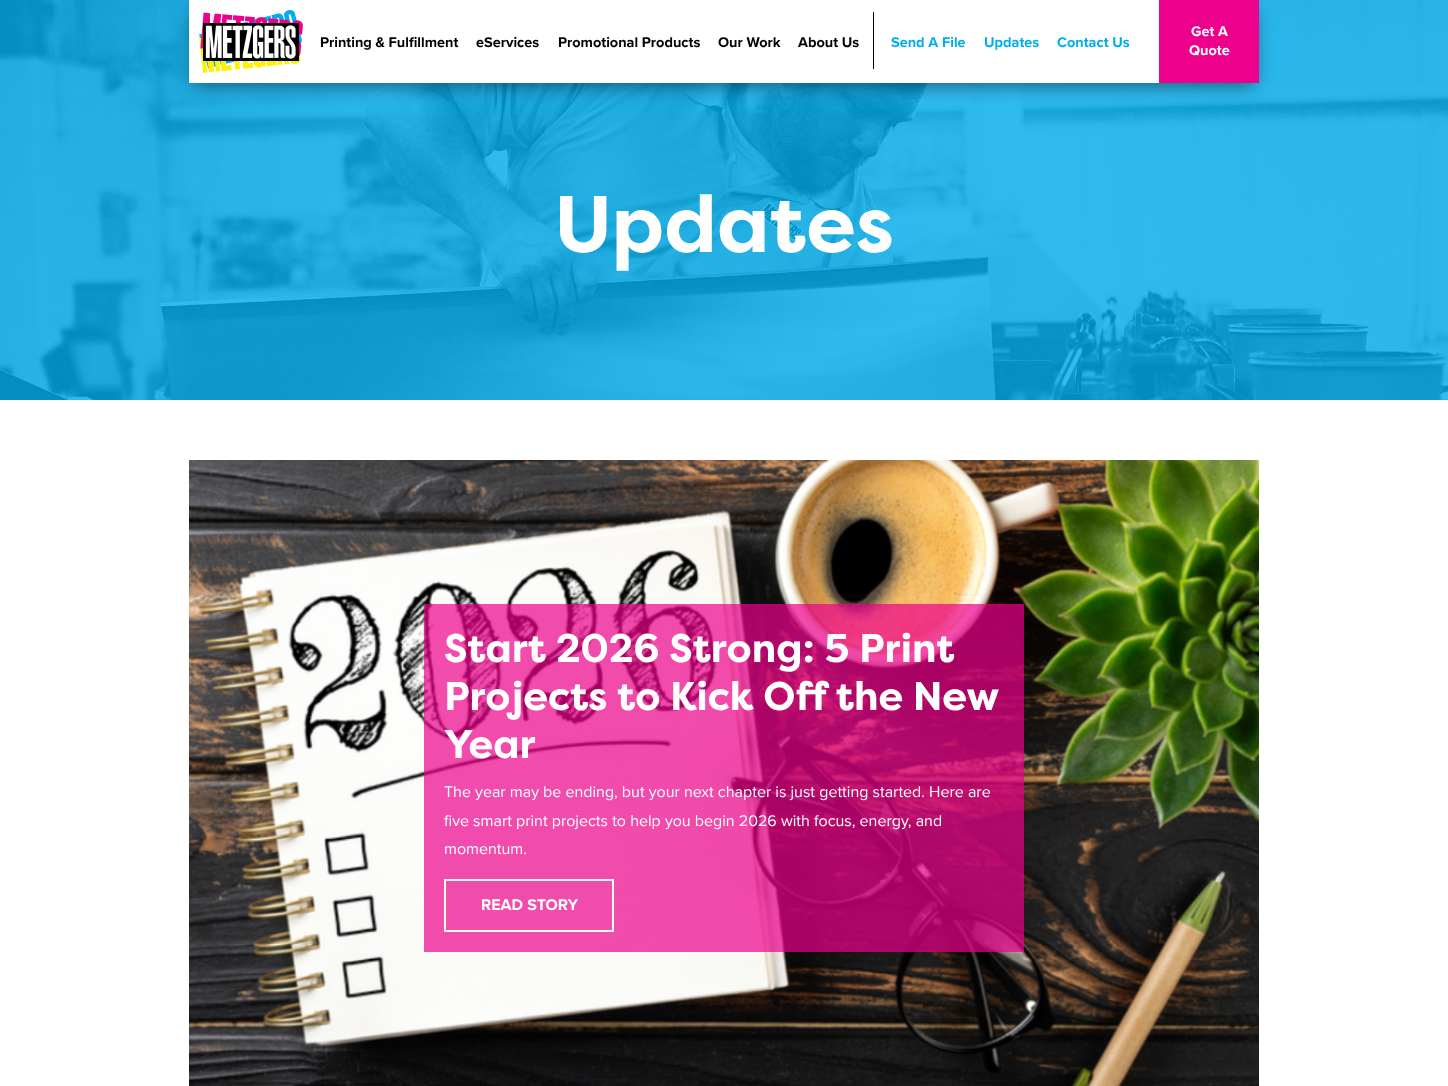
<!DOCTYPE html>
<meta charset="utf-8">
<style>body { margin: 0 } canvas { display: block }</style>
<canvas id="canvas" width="1448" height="1086"></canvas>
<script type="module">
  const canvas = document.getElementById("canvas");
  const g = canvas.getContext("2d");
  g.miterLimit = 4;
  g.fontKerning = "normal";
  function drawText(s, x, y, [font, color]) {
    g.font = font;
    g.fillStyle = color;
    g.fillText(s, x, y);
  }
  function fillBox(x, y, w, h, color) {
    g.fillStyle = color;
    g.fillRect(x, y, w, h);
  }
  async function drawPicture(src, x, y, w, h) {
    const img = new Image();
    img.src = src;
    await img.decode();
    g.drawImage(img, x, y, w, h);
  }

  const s1 = ["bold 14.5px Proxima Nova", "#000000"];
  const s2 = ["bold 14.5px Proxima Nova", "#00AEEF"];
  const s3 = ["bold 14.5px Proxima Nova", "#FFFFFF"];
  const s4 = ["bold 80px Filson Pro", "#FFFFFF"];
  const s5 = ["bold 40px Filson Pro", "#FFFFFF"];
  const s6 = ["16px Proxima Nova", "#FFFFFF"];
  const s7 = ["bold 16px Proxima Nova", "#FFFFFF"];

  fillBox(0, 0, 1448, 1086, "#FFFFFF");
  await drawPicture("pic2.png", 0, 0, 1448, 400);
  g.fillStyle = "rgba(0, 0, 0, 0.57)";
  g.filter = "blur(10px)";
  g.beginPath();
  g.rect(195, 13, 1058, 71);
  g.fill();
  g.filter = "none";
  fillBox(189, 0, 970, 83, "#FFFFFF");
  await drawPicture("pic1.png", 199, 10, 104, 63);
  drawText("Printing & Fulfillment", 320, 47, s1);
  drawText("eServices", 476, 47, s1);
  drawText("Promotional Products", 558, 47, s1);
  drawText("Our Work", 718, 47, s1);
  drawText("About Us", 798, 47, s1);
  fillBox(873, 12, 1, 57, "#000000");
  drawText("Send A File", 891, 47, s2);
  drawText("Updates", 984, 47, s2);
  drawText("Contact Us", 1057, 47, s2);
  fillBox(1159, 0, 100, 83, "#EC008C");
  drawText("Get A", 1191, 36, s3);
  drawText("Quote", 1189, 55, s3);
  drawText("Updates", 554, 252, s4);
  await drawPicture("pic3.png", 189, 460, 1070, 626);
  fillBox(424, 604, 600, 348, "rgba(236, 0, 140, 0.7)");
  drawText("Start 2026 Strong: 5 Print", 444, 662, s5);
  g.wordSpacing = "-0.25px";
  drawText("Projects to Kick Off the New", 444, 710, s5);
  g.wordSpacing = "0px";
  drawText("Year", 444, 758, s5);
  drawText("The year may be ending, but your next chapter is just getting started. Here are", 444, 797, s6);
  drawText("five smart print projects to help you begin 2026 with focus, energy, and", 444, 826, s6);
  drawText("momentum.", 444, 854, s6);
  g.strokeStyle = "#FFFFFF";
  g.lineWidth = 2;
  g.strokeRect(445, 880, 168, 51);
  drawText("READ STORY", 481, 910, s7);
</script>
